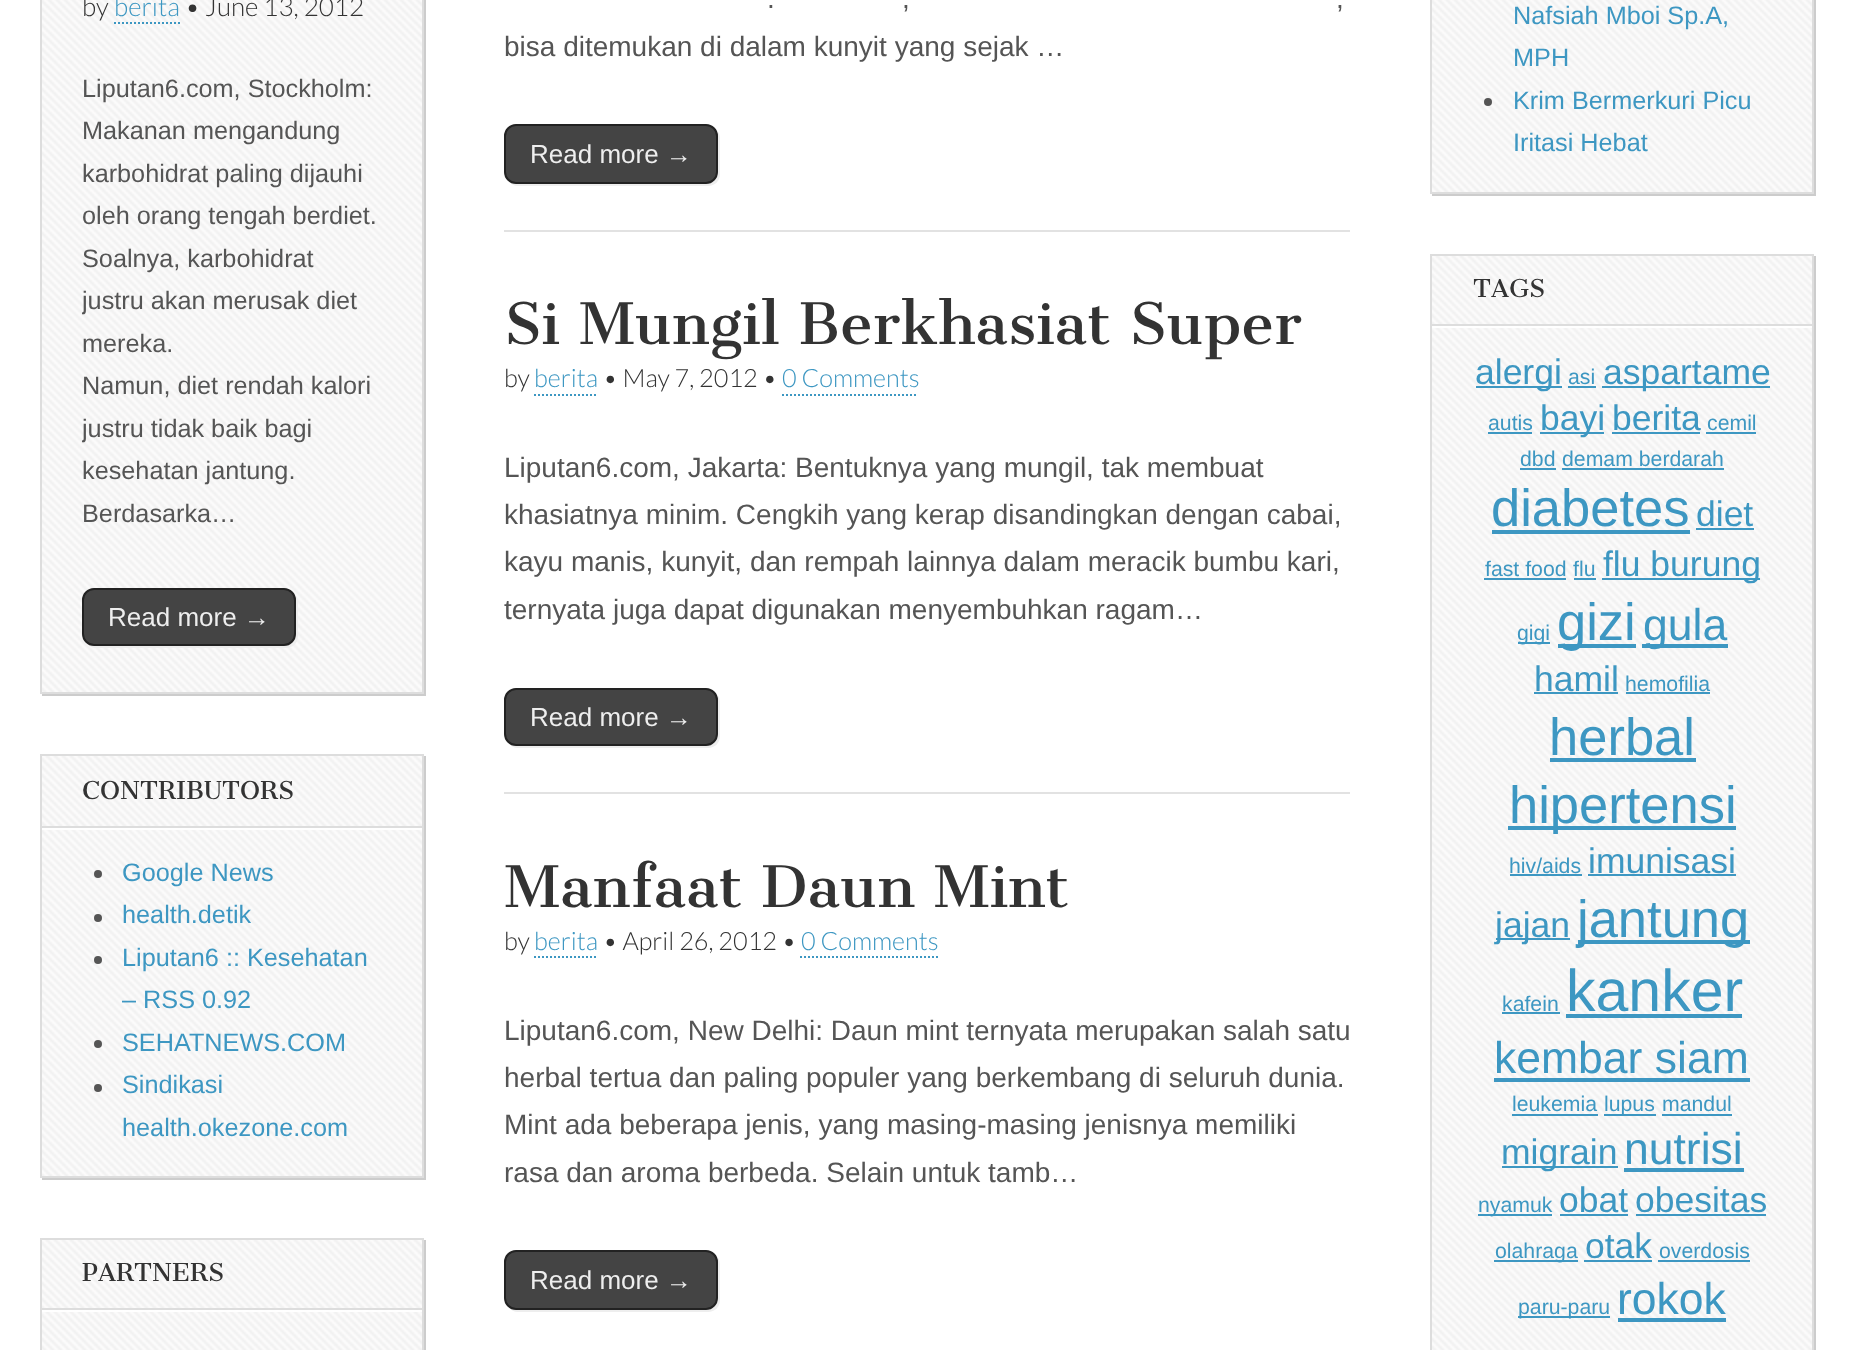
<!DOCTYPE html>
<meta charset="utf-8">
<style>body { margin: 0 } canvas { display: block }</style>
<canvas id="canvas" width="1853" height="1350"></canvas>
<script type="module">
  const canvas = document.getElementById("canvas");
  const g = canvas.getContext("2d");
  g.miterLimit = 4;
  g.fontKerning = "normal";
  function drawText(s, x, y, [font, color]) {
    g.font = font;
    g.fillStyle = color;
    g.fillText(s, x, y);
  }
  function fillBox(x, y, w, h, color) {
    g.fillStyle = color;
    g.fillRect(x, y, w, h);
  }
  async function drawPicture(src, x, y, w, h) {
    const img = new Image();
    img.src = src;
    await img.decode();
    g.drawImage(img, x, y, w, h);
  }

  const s1 = ["300 26px Lato", "#333333"];
  const s2 = ["300 26px Lato", "#3D97C2"];
  const s3 = ["25.25px Liberation Sans", "#555555"];
  const s4 = ["26px Liberation Sans", "#EEEEEE"];
  const s5 = ["24px Cantata One", "#333333"];
  const s6 = ["25.25px Liberation Sans", "#3D97C2"];
  const s7 = ["28px Liberation Sans", "#555555"];
  const s8 = ["56px Cantata One", "#333333"];
  const s9 = ["300 25.25px Lato", "#333333"];
  const s10 = ["300 25.25px Lato", "#3D97C2"];
  const s11 = ["35.5px Liberation Sans", "#3D97C2"];
  const s12 = ["21.25px Liberation Sans", "#3D97C2"];
  const s13 = ["52.5px Liberation Sans", "#3D97C2"];
  const s14 = ["44.5px Liberation Sans", "#3D97C2"];
  const s15 = ["59px Liberation Sans", "#3D97C2"];

  fillBox(0, 0, 1853, 1350, "#FFFFFF");
  g.fillStyle = "#CCCCCC";
  g.beginPath();
  g.moveTo(42, 694);
  g.lineTo(42, 696);
  g.lineTo(426, 696);
  g.lineTo(426, -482);
  g.lineTo(424, -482);
  g.lineTo(424, 694);
  g.closePath();
  g.fill();
  await drawPicture("pic1.png", 42, 0, 380, 692);
  g.strokeStyle = "#DDDDDD";
  g.lineWidth = 2;
  g.strokeRect(41, -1, 382, 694);
  drawText("by", 82, 16, s1);
  drawText("berita", 114, 16, s2);
  g.beginPath();
  g.moveTo(114, 23);
  g.lineTo(180, 23);
  g.strokeStyle = "#3D97C2";
  g.setLineDash([2, 2]);
  g.stroke();
  drawText("• June 13, 2012", 185, 16, s1);
  drawText("Liputan6.com, Stockholm:", 82, 97, s3);
  drawText("Makanan mengandung", 82, 139, s3);
  drawText("karbohidrat paling dijauhi", 82, 182, s3);
  drawText("oleh orang tengah berdiet.", 82, 224, s3);
  drawText("Soalnya, karbohidrat", 82, 267, s3);
  g.save();
  g.beginPath();
  g.rect(82, 44, 300, 648);
  g.clip();
  drawText("justru akan merusak diet", 82, 309, s3);
  g.restore();
  drawText("mereka.", 82, 352, s3);
  drawText("Namun, diet rendah kalori", 82, 394, s3);
  g.save();
  g.beginPath();
  g.rect(82, 44, 300, 648);
  g.clip();
  drawText("justru tidak baik bagi", 82, 437, s3);
  g.restore();
  drawText("kesehatan jantung.", 82, 479, s3);
  drawText("Berdasarka…", 82, 522, s3);
  g.fillStyle = "#EEEEEE";
  g.beginPath();
  g.moveTo(87, 643);
  g.bezierCurveTo(89, 646, 92, 648, 96, 648);
  g.lineTo(286, 648);
  g.bezierCurveTo(293, 648, 298, 643, 298, 636);
  g.lineTo(298, 602);
  g.bezierCurveTo(298, 598, 296, 595, 293, 593);
  g.bezierCurveTo(295, 595, 296, 597, 296, 600);
  g.lineTo(296, 634);
  g.bezierCurveTo(296, 641, 291, 646, 284, 646);
  g.lineTo(94, 646);
  g.bezierCurveTo(91, 646, 89, 645, 87, 643);
  g.closePath();
  g.fill();
  g.fillStyle = "#444444";
  g.beginPath();
  g.roundRect(83, 589, 212, 56, 11);
  g.fill();
  g.strokeStyle = "#222222";
  g.setLineDash([]);
  g.stroke();
  drawText("Read more →", 108, 626, s4);
  g.fillStyle = "#CCCCCC";
  g.beginPath();
  g.moveTo(42, 1178);
  g.lineTo(42, 1180);
  g.lineTo(426, 1180);
  g.lineTo(426, 756);
  g.lineTo(424, 756);
  g.lineTo(424, 1178);
  g.closePath();
  g.fill();
  await drawPicture("pic2.png", 42, 756, 380, 420);
  g.strokeStyle = "#DDDDDD";
  g.strokeRect(41, 755, 382, 422);
  fillBox(42, 828, 380, 2, "#FFFFFF");
  fillBox(42, 826, 380, 2, "#DDDDDD");
  drawText("CONTRIBUTORS", 82, 799, s5);
  g.fillStyle = "#555555";
  g.beginPath();
  g.arc(98, 874, 4, 0, Math.PI * 2);
  g.fill();
  drawText("Google News", 122, 881, s6);
  g.fillStyle = "#555555";
  g.beginPath();
  g.arc(98, 918, 4, 0, Math.PI * 2);
  g.fill();
  drawText("health.detik", 122, 923, s6);
  g.fillStyle = "#555555";
  g.beginPath();
  g.arc(98, 960, 4, 0, Math.PI * 2);
  g.fill();
  drawText("Liputan6 :: Kesehatan", 122, 966, s6);
  drawText("– RSS 0.92", 122, 1008, s6);
  g.fillStyle = "#555555";
  g.beginPath();
  g.arc(98, 1044, 4, 0, Math.PI * 2);
  g.fill();
  drawText("SEHATNEWS.COM", 122, 1051, s6);
  g.fillStyle = "#555555";
  g.beginPath();
  g.arc(98, 1088, 4, 0, Math.PI * 2);
  g.fill();
  drawText("Sindikasi", 122, 1093, s6);
  drawText("health.okezone.com", 122, 1136, s6);
  g.fillStyle = "#CCCCCC";
  g.beginPath();
  g.moveTo(42, 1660);
  g.lineTo(42, 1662);
  g.lineTo(426, 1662);
  g.lineTo(426, 1240);
  g.lineTo(424, 1240);
  g.lineTo(424, 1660);
  g.closePath();
  g.fill();
  await drawPicture("pic3.png", 42, 1240, 380, 110);
  g.strokeRect(41, 1239, 382, 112);
  fillBox(42, 1310, 380, 2, "#FFFFFF");
  fillBox(42, 1308, 380, 2, "#DDDDDD");
  drawText("PARTNERS", 82, 1281, s5);
  fillBox(504, 230, 846, 2, "#E2E2E2");
  drawText(".", 767, 8, s7);
  drawText(",", 902, 8, s7);
  drawText(",", 1336, 8, s7);
  drawText("bisa ditemukan di dalam kunyit yang sejak …", 504, 56, s7);
  g.fillStyle = "#EEEEEE";
  g.beginPath();
  g.moveTo(509, 181);
  g.bezierCurveTo(511, 184, 514, 186, 518, 186);
  g.lineTo(708, 186);
  g.bezierCurveTo(715, 186, 720, 181, 720, 174);
  g.lineTo(720, 138);
  g.bezierCurveTo(720, 134, 718, 131, 715, 129);
  g.bezierCurveTo(717, 131, 718, 133, 718, 136);
  g.lineTo(718, 172);
  g.bezierCurveTo(718, 179, 713, 184, 706, 184);
  g.lineTo(516, 184);
  g.bezierCurveTo(513, 184, 511, 183, 509, 181);
  g.closePath();
  g.fill();
  g.fillStyle = "#444444";
  g.beginPath();
  g.roundRect(505, 125, 212, 58, 11);
  g.fill();
  g.strokeStyle = "#222222";
  g.stroke();
  drawText("Read more →", 530, 163, s4);
  drawText("Si Mungil Berkhasiat Super", 504, 344, s8);
  drawText("by", 504, 387, s9);
  drawText("berita", 534, 387, s10);
  g.beginPath();
  g.moveTo(534, 395);
  g.lineTo(598, 395);
  g.strokeStyle = "#3D97C2";
  g.setLineDash([2, 2]);
  g.stroke();
  drawText("• May 7, 2012 •", 603, 387, s9);
  drawText("0 Comments", 782, 387, s10);
  g.beginPath();
  g.moveTo(782, 395);
  g.lineTo(918, 395);
  g.stroke();
  fillBox(504, 792, 846, 2, "#E2E2E2");
  drawText("Liputan6.com, Jakarta: Bentuknya yang mungil, tak membuat", 504, 477, s7);
  drawText("khasiatnya minim. Cengkih yang kerap disandingkan dengan cabai,", 504, 524, s7);
  drawText("kayu manis, kunyit, dan rempah lainnya dalam meracik bumbu kari,", 504, 571, s7);
  drawText("ternyata juga dapat digunakan menyembuhkan ragam…", 504, 619, s7);
  g.fillStyle = "#EEEEEE";
  g.beginPath();
  g.moveTo(509, 743);
  g.bezierCurveTo(511, 746, 514, 748, 518, 748);
  g.lineTo(708, 748);
  g.bezierCurveTo(715, 748, 720, 743, 720, 736);
  g.lineTo(720, 702);
  g.bezierCurveTo(720, 698, 718, 695, 715, 693);
  g.bezierCurveTo(717, 695, 718, 697, 718, 700);
  g.lineTo(718, 734);
  g.bezierCurveTo(718, 741, 713, 746, 706, 746);
  g.lineTo(516, 746);
  g.bezierCurveTo(513, 746, 511, 745, 509, 743);
  g.closePath();
  g.fill();
  g.fillStyle = "#444444";
  g.beginPath();
  g.roundRect(505, 689, 212, 56, 11);
  g.fill();
  g.strokeStyle = "#222222";
  g.setLineDash([]);
  g.stroke();
  drawText("Read more →", 530, 726, s4);
  drawText("Manfaat Daun Mint", 504, 907, s8);
  drawText("by", 504, 950, s9);
  drawText("berita", 534, 950, s10);
  g.beginPath();
  g.moveTo(534, 957);
  g.lineTo(598, 957);
  g.strokeStyle = "#3D97C2";
  g.setLineDash([2, 2]);
  g.stroke();
  drawText("• April 26, 2012 •", 603, 950, s9);
  drawText("0 Comments", 801, 950, s10);
  g.beginPath();
  g.moveTo(800, 957);
  g.lineTo(938, 957);
  g.stroke();
  drawText("Liputan6.com, New Delhi: Daun mint ternyata merupakan salah satu", 504, 1040, s7);
  drawText("herbal tertua dan paling populer yang berkembang di seluruh dunia.", 504, 1087, s7);
  drawText("Mint ada beberapa jenis, yang masing-masing jenisnya memiliki", 504, 1134, s7);
  drawText("rasa dan aroma berbeda. Selain untuk tamb…", 504, 1182, s7);
  g.fillStyle = "#EEEEEE";
  g.beginPath();
  g.moveTo(509, 1307);
  g.bezierCurveTo(511, 1310, 514, 1312, 518, 1312);
  g.lineTo(708, 1312);
  g.bezierCurveTo(715, 1312, 720, 1307, 720, 1300);
  g.lineTo(720, 1264);
  g.bezierCurveTo(720, 1260, 718, 1257, 715, 1255);
  g.bezierCurveTo(717, 1257, 718, 1259, 718, 1262);
  g.lineTo(718, 1298);
  g.bezierCurveTo(718, 1305, 713, 1310, 706, 1310);
  g.lineTo(516, 1310);
  g.bezierCurveTo(513, 1310, 511, 1309, 509, 1307);
  g.closePath();
  g.fill();
  g.fillStyle = "#444444";
  g.beginPath();
  g.roundRect(505, 1251, 212, 58, 11);
  g.fill();
  g.strokeStyle = "#222222";
  g.setLineDash([]);
  g.stroke();
  drawText("Read more →", 530, 1289, s4);
  g.fillStyle = "#CCCCCC";
  g.beginPath();
  g.moveTo(1432, 194);
  g.lineTo(1432, 196);
  g.lineTo(1816, 196);
  g.lineTo(1816, -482);
  g.lineTo(1814, -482);
  g.lineTo(1814, 194);
  g.closePath();
  g.fill();
  await drawPicture("pic4.png", 1432, 0, 380, 192);
  g.strokeStyle = "#DDDDDD";
  g.strokeRect(1431, -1, 382, 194);
  drawText("Nafsiah Mboi Sp.A,", 1513, 24, s6);
  drawText("MPH", 1513, 66, s6);
  g.fillStyle = "#555555";
  g.beginPath();
  g.arc(1488, 102, 4, 0, Math.PI * 2);
  g.fill();
  drawText("Krim Bermerkuri Picu", 1513, 109, s6);
  drawText("Iritasi Hebat", 1513, 151, s6);
  g.fillStyle = "#CCCCCC";
  g.beginPath();
  g.moveTo(1432, 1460);
  g.lineTo(1432, 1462);
  g.lineTo(1816, 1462);
  g.lineTo(1816, 256);
  g.lineTo(1814, 256);
  g.lineTo(1814, 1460);
  g.closePath();
  g.fill();
  await drawPicture("pic5.png", 1432, 256, 380, 1094);
  g.strokeRect(1431, 255, 382, 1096);
  fillBox(1432, 326, 380, 2, "#FFFFFF");
  fillBox(1432, 324, 380, 2, "#DDDDDD");
  drawText("TAGS", 1473, 297, s5);
  fillBox(1476, 386, 86, 2, "#3D97C2");
  drawText("alergi", 1475, 384, s11);
  drawText("asi", 1568, 384, s12);
  fillBox(1568, 386, 28, 2, "#3D97C2");
  fillBox(1602, 386, 168, 2, "#3D97C2");
  drawText("aspartame", 1603, 384, s11);
  drawText("autis", 1488, 430, s12);
  fillBox(1488, 432, 44, 2, "#3D97C2");
  fillBox(1540, 432, 64, 2, "#3D97C2");
  drawText("bayi", 1540, 430, s11);
  drawText("berita", 1612, 430, s11);
  fillBox(1612, 432, 88, 2, "#3D97C2");
  drawText("cemil", 1707, 430, s12);
  fillBox(1706, 432, 50, 2, "#3D97C2");
  drawText("dbd", 1520, 466, s12);
  fillBox(1520, 468, 36, 2, "#3D97C2");
  drawText("demam berdarah", 1562, 466, s12);
  fillBox(1562, 468, 162, 2, "#3D97C2");
  drawText("diabetes", 1491, 526, s13);
  fillBox(1492, 530, 198, 4, "#3D97C2");
  drawText("diet", 1696, 526, s11);
  fillBox(1696, 528, 58, 2, "#3D97C2");
  drawText("fast food", 1485, 576, s12);
  fillBox(1484, 578, 82, 2, "#3D97C2");
  drawText("flu", 1573, 576, s12);
  fillBox(1574, 578, 22, 2, "#3D97C2");
  fillBox(1602, 578, 158, 2, "#3D97C2");
  drawText("flu burung", 1603, 576, s11);
  fillBox(1518, 642, 32, 2, "#3D97C2");
  drawText("gigi", 1517, 640, s12);
  fillBox(1558, 644, 78, 4, "#3D97C2");
  drawText("gizi", 1557, 640, s13);
  fillBox(1642, 644, 86, 4, "#3D97C2");
  drawText("gula", 1643, 640, s14);
  drawText("hamil", 1534, 691, s11);
  fillBox(1534, 692, 84, 2, "#3D97C2");
  drawText("hemofilia", 1625, 691, s12);
  fillBox(1626, 692, 84, 2, "#3D97C2");
  drawText("herbal", 1549, 755, s13);
  fillBox(1550, 758, 146, 4, "#3D97C2");
  fillBox(1508, 826, 228, 4, "#3D97C2");
  drawText("hipertensi", 1509, 823, s13);
  drawText("hiv/aids", 1509, 873, s12);
  fillBox(1510, 874, 72, 2, "#3D97C2");
  drawText("imunisasi", 1588, 873, s11);
  fillBox(1588, 874, 148, 2, "#3D97C2");
  fillBox(1496, 938, 74, 2, "#3D97C2");
  drawText("jajan", 1495, 937, s11);
  fillBox(1578, 940, 172, 4, "#3D97C2");
  drawText("jantung", 1577, 937, s13);
  drawText("kafein", 1502, 1011, s12);
  fillBox(1502, 1012, 58, 2, "#3D97C2");
  drawText("kanker", 1566, 1011, s15);
  fillBox(1566, 1014, 176, 4, "#3D97C2");
  drawText("kembar siam", 1494, 1073, s14);
  fillBox(1494, 1078, 256, 4, "#3D97C2");
  drawText("leukemia", 1512, 1111, s12);
  fillBox(1512, 1114, 86, 2, "#3D97C2");
  fillBox(1604, 1114, 52, 2, "#3D97C2");
  drawText("lupus", 1604, 1111, s12);
  drawText("mandul", 1662, 1111, s12);
  fillBox(1662, 1114, 70, 2, "#3D97C2");
  fillBox(1502, 1166, 116, 2, "#3D97C2");
  drawText("migrain", 1501, 1164, s11);
  drawText("nutrisi", 1624, 1164, s14);
  fillBox(1624, 1168, 120, 4, "#3D97C2");
  fillBox(1478, 1214, 74, 2, "#3D97C2");
  drawText("nyamuk", 1478, 1212, s12);
  drawText("obat", 1559, 1212, s11);
  fillBox(1560, 1214, 68, 2, "#3D97C2");
  drawText("obesitas", 1635, 1212, s11);
  fillBox(1636, 1214, 130, 2, "#3D97C2");
  fillBox(1494, 1260, 84, 2, "#3D97C2");
  drawText("olahraga", 1495, 1258, s12);
  drawText("otak", 1585, 1258, s11);
  fillBox(1584, 1260, 68, 2, "#3D97C2");
  drawText("overdosis", 1659, 1258, s12);
  fillBox(1658, 1260, 92, 2, "#3D97C2");
  fillBox(1518, 1316, 92, 2, "#3D97C2");
  drawText("paru-paru", 1518, 1314, s12);
  drawText("rokok", 1617, 1314, s14);
  fillBox(1618, 1318, 108, 4, "#3D97C2");
</script>
